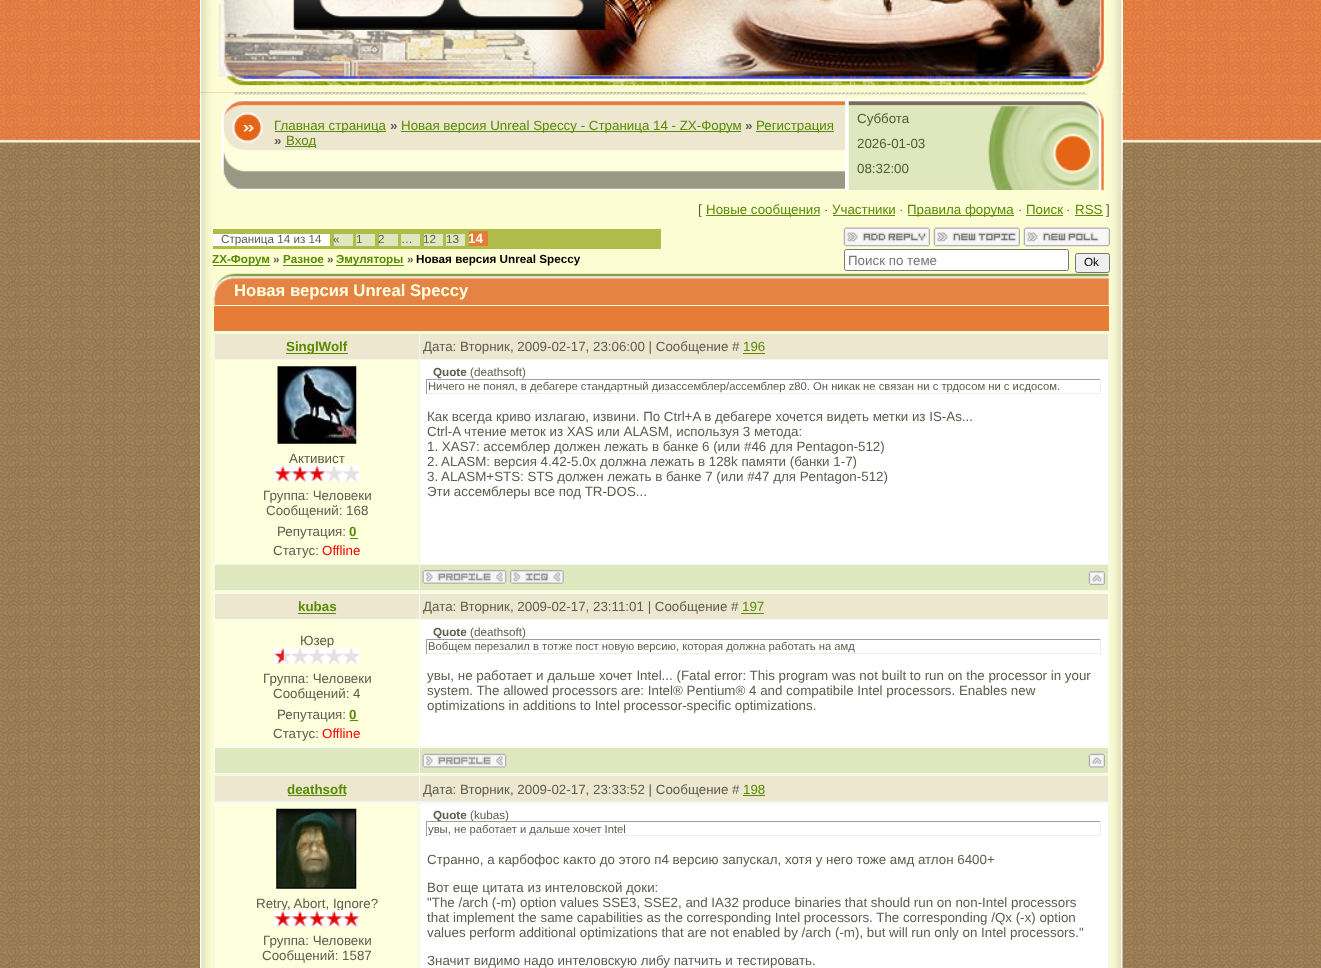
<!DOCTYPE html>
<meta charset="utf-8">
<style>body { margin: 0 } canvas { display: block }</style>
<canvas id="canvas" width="1321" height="968"></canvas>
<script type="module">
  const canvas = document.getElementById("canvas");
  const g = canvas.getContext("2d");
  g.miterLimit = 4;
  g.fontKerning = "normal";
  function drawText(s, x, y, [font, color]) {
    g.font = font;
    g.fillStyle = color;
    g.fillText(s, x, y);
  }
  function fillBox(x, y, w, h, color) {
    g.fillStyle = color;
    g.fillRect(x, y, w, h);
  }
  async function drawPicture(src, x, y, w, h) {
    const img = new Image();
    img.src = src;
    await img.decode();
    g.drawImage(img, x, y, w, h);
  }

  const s1 = ["13.35px Liberation Sans", "#578C00"];
  const s2 = ["bold 13.35px Liberation Sans", "#5E5C4E"];
  const s3 = ["13.35px Liberation Sans", "#4C5F2C"];
  const s4 = ["13.35px Liberation Sans", "#5E5C4E"];
  const s5 = ["11.7px Liberation Sans", "#5E5C4E"];
  const s6 = ["bold 13.35px Liberation Sans", "#FFFFFF"];
  const s7 = ["bold 11.7px Liberation Sans", "#578C00"];
  const s8 = ["bold 11.7px Liberation Sans", "#5E5C4E"];
  const s9 = ["bold 11.7px Liberation Sans", "#000000"];
  const s10 = ["13.35px Liberation Sans", "#757575"];
  const s11 = ["11.7px Liberation Sans", "#000000"];
  const s12 = ["bold 16.7px Liberation Sans", "#FDFFDD"];
  const s13 = ["bold 13.35px Liberation Sans", "#578C00"];
  const s14 = ["13.35px Liberation Sans", "#FF0000"];
  const s15 = ["11.25px Liberation Sans", "#5E5C4E"];

  fillBox(0, 0, 1321, 968, "#FFFFFF");
  await drawPicture("pic1.png", 0, 142, 1321, 826);
  await drawPicture("pic2.png", 0, 0, 1321, 143);
  await drawPicture("pic3.png", 200, 0, 500, 93);
  await drawPicture("pic4.png", 293, 0, 314, 30);
  fillBox(700, 0, 423, 93, "#FDFDD4");
  await drawPicture("pic5.png", 700, 0, 423, 93);
  await drawPicture("pic6.png", 200, 92, 923, 3);
  await drawPicture("pic7.png", 200, 95, 923, 95);
  await drawPicture("pic8.png", 221, 95, 624, 95);
  fillBox(275, 131, 111, 1, "#578C00");
  drawText("Главная страница", 274, 130, s1);
  drawText("»", 390, 130, s2);
  fillBox(401, 131, 340, 1, "#578C00");
  drawText("Новая версия Unreal Speccy - Страница 14 - ZX-Форум", 401, 130, s1);
  drawText("»", 745, 130, s2);
  fillBox(756, 131, 78, 1, "#578C00");
  drawText("Регистрация", 756, 130, s1);
  drawText("»", 274, 145, s2);
  fillBox(285, 146, 31, 1, "#578C00");
  drawText("Вход", 286, 145, s1);
  await drawPicture("pic9.png", 845, 95, 278, 95);
  drawText("Суббота", 857, 123, s3);
  drawText("2026-01-03", 857, 148, s3);
  drawText("08:32:00", 857, 173, s3);
  await drawPicture("pic10.png", 200, 190, 923, 778);
  drawText("[", 698, 214, s4);
  fillBox(706, 215, 114, 1, "#578C00");
  drawText("Новые сообщения", 706, 214, s1);
  drawText("·", 824, 214, s4);
  drawText("Участники", 832, 214, s1);
  fillBox(833, 215, 62, 1, "#578C00");
  drawText("·", 899, 214, s4);
  fillBox(908, 215, 106, 1, "#578C00");
  drawText("Правила форума", 907, 214, s1);
  drawText("·", 1018, 214, s4);
  drawText("Поиск", 1026, 214, s1);
  fillBox(1026, 215, 37, 1, "#578C00");
  drawText("·", 1066, 214, s4);
  drawText("RSS", 1075, 214, s1);
  fillBox(1075, 215, 28, 1, "#578C00");
  drawText("]", 1106, 214, s4);
  fillBox(213, 229, 448, 20, "#B0BC4A");
  fillBox(213, 234, 117, 12, "#FFFFFF");
  drawText("Страница 14 из 14", 221, 243, s5);
  fillBox(334, 234, 19, 12, "#DFE7BF");
  drawText("«", 333, 243, s5);
  fillBox(356, 234, 19, 12, "#DFE7BF");
  drawText("1", 356, 243, s5);
  fillBox(379, 234, 19, 12, "#DFE7BF");
  drawText("2", 378, 243, s5);
  fillBox(401, 234, 19, 12, "#DFE7BF");
  drawText("…", 401, 243, s5);
  fillBox(424, 234, 19, 12, "#DFE7BF");
  drawText("12", 423, 243, s5);
  fillBox(446, 234, 19, 12, "#DFE7BF");
  drawText("13", 446, 243, s5);
  fillBox(469, 231, 19, 15, "#E77C37");
  drawText("14", 468, 243, s6);
  await drawPicture("pic11.png", 843, 227, 87, 20);
  await drawPicture("pic12.png", 933, 227, 87, 20);
  await drawPicture("pic13.png", 1023, 227, 87, 20);
  fillBox(213, 265, 57, 1, "#578C00");
  drawText("ZX-Форум", 212, 263, s7);
  drawText("»", 273, 263, s8);
  drawText("Разное", 283, 263, s7);
  fillBox(283, 265, 41, 1, "#578C00");
  drawText("»", 327, 263, s8);
  fillBox(336, 265, 68, 1, "#578C00");
  drawText("Эмуляторы", 336, 263, s7);
  drawText("»", 407, 263, s8);
  drawText("Новая версия Unreal Speccy", 416, 263, s9);
  g.fillStyle = "#FFFFFF";
  g.beginPath();
  g.roundRect(844.5, 249.5, 224, 21, 2);
  g.fill();
  g.strokeStyle = "#767676";
  g.stroke();
  drawText("Поиск по теме", 848, 265, s10);
  g.fillStyle = "#EFEFEF";
  g.beginPath();
  g.roundRect(1075.5, 253.5, 34, 19, 2);
  g.fill();
  g.stroke();
  drawText("Ok", 1084, 266, s11);
  await drawPicture("pic14.png", 213, 273, 896, 32);
  drawText("Новая версия Unreal Speccy", 234, 296, s12);
  fillBox(214, 306, 895, 25, "#E77C37");
  fillBox(214, 333, 895, 258, "#F0F7EE");
  fillBox(215, 334, 204, 25, "#EEE7CF");
  fillBox(286, 353, 62, 1, "#578C00");
  drawText("SinglWolf", 286, 351, s13);
  fillBox(420, 334, 688, 25, "#EEE7CF");
  drawText("Дата: Вторник, 2009-02-17, 23:06:00 | Сообщение #", 423, 351, s4);
  drawText("196", 743, 351, s1);
  fillBox(743, 353, 22, 1, "#578C00");
  fillBox(215, 360, 204, 204, "#FDFFDD");
  await drawPicture("pic15.png", 277, 366, 80, 78);
  drawText("Активист", 289, 463, s4);
  await drawPicture("pic16.png", 273, 465, 87, 17);
  drawText("Группа: Человеки", 263, 500, s4);
  drawText("Сообщений: 168", 266, 515, s4);
  drawText("Репутация:", 277, 536, s4);
  drawText("0", 349, 536, s13);
  fillBox(350, 538, 8, 1, "#578C00");
  drawText("Статус:", 273, 555, s4);
  drawText("Offline", 322, 555, s14);
  fillBox(420, 360, 688, 204, "#FFFFFF");
  drawText("Quote", 433, 376, s8);
  drawText("(deathsoft)", 470, 376, s5);
  fillBox(426, 379, 675, 1, "#9F9F9F");
  fillBox(1100, 379, 1, 15, "#EEEEEE");
  fillBox(426, 393, 675, 1, "#EEEEEE");
  fillBox(426, 379, 1, 15, "#9F9F9F");
  drawText("Ничего не понял, в дебагере стандартный дизассемблер/ассемблер z80. Он никак не связан ни с трдосом ни с исдосом.", 428, 390, s15);
  drawText("Как всегда криво излагаю, извини. По Ctrl+A в дебагере хочется видеть метки из IS-As...", 427, 421, s4);
  drawText("Ctrl-A чтение меток из XAS или ALASM, используя 3 метода:", 427, 436, s4);
  drawText("1. XAS7: ассемблер должен лежать в банке 6 (или #46 для Pentagon-512)", 427, 451, s4);
  drawText("2. ALASM: версия 4.42-5.0x должна лежать в 128k памяти (банки 1-7)", 427, 466, s4);
  drawText("3. ALASM+STS: STS должен лежать в банке 7 (или #47 для Pentagon-512)", 427, 481, s4);
  drawText("Эти ассемблеры все под TR-DOS...", 427, 496, s4);
  fillBox(215, 565, 204, 25, "#DFE7BF");
  fillBox(420, 565, 688, 25, "#DFE7BF");
  await drawPicture("pic17.png", 422, 570, 85, 14);
  await drawPicture("pic18.png", 510, 570, 54, 14);
  await drawPicture("pic19.png", 1088, 571, 17, 14);
  fillBox(214, 593, 895, 181, "#F7FDF4");
  fillBox(215, 594, 204, 25, "#EEE7CF");
  drawText("kubas", 298, 611, s13);
  fillBox(298, 613, 38, 1, "#578C00");
  fillBox(420, 594, 688, 25, "#EEE7CF");
  drawText("Дата: Вторник, 2009-02-17, 23:11:01 | Сообщение #", 423, 611, s4);
  drawText("197", 742, 611, s1);
  fillBox(741, 613, 23, 1, "#578C00");
  fillBox(215, 620, 204, 126, "#FDFFDD");
  drawText("Юзер", 300, 645, s4);
  await drawPicture("pic20.png", 273, 647, 87, 17);
  drawText("Группа: Человеки", 263, 683, s4);
  drawText("Сообщений: 4", 273, 698, s4);
  drawText("Репутация:", 277, 719, s4);
  drawText("0", 349, 719, s13);
  fillBox(350, 720, 8, 1, "#578C00");
  drawText("Статус:", 273, 738, s4);
  drawText("Offline", 322, 738, s14);
  fillBox(420, 620, 688, 126, "#FFFFFF");
  drawText("Quote", 433, 636, s8);
  drawText("(deathsoft)", 470, 636, s5);
  fillBox(426, 639, 675, 1, "#9F9F9F");
  fillBox(1100, 639, 1, 15, "#EEEEEE");
  fillBox(426, 653, 675, 1, "#EEEEEE");
  fillBox(426, 639, 1, 15, "#9F9F9F");
  drawText("Вобщем перезалил в тотже пост новую версию, которая должна работать на амд", 428, 650, s15);
  drawText("увы, не работает и дальше хочет Intel... (Fatal error: This program was not built to run on the processor in your", 427, 680, s4);
  drawText("system. The allowed processors are: Intel® Pentium® 4 and compatibile Intel processors. Enables new", 427, 695, s4);
  drawText("optimizations in additions to Intel processor-specific optimizations.", 427, 710, s4);
  fillBox(215, 748, 204, 25, "#DFE7BF");
  fillBox(420, 748, 688, 25, "#DFE7BF");
  await drawPicture("pic21.png", 422, 753, 85, 15);
  await drawPicture("pic22.png", 1088, 753, 17, 15);
  fillBox(214, 775, 895, 193, "#F0F7EE");
  fillBox(215, 776, 204, 25, "#EEE7CF");
  drawText("deathsoft", 287, 794, s13);
  fillBox(288, 795, 58, 1, "#578C00");
  fillBox(420, 776, 688, 25, "#EEE7CF");
  drawText("Дата: Вторник, 2009-02-17, 23:33:52 | Сообщение #", 423, 794, s4);
  drawText("198", 743, 794, s1);
  fillBox(743, 795, 22, 1, "#578C00");
  fillBox(215, 803, 204, 165, "#FDFFDD");
  await drawPicture("pic23.png", 276, 808, 81, 81);
  drawText("Retry, Abort, Ignore?", 256, 908, s4);
  await drawPicture("pic24.png", 273, 910, 87, 17);
  drawText("Группа: Человеки", 263, 945, s4);
  drawText("Сообщений: 1587", 262, 960, s4);
  fillBox(420, 803, 688, 165, "#FFFFFF");
  drawText("Quote", 433, 819, s8);
  drawText("(kubas)", 470, 819, s5);
  fillBox(426, 821, 675, 1, "#9F9F9F");
  fillBox(1100, 821, 1, 15, "#EEEEEE");
  fillBox(426, 835, 675, 1, "#EEEEEE");
  fillBox(426, 821, 1, 15, "#9F9F9F");
  g.save();
  g.beginPath();
  g.rect(428, 823, 672, 12);
  g.clip();
  drawText("увы, не работает и дальше хочет Intel", 428, 833, s15);
  g.restore();
  drawText("Странно, а карбофос както до этого п4 версию запускал, хотя у него тоже амд атлон 6400+", 427, 864, s4);
  drawText("Вот еще цитата из интеловской доки:", 427, 892, s4);
  drawText("\"The /arch (-m) option values SSE3, SSE2, and IA32 produce binaries that should run on non-Intel processors", 427, 907, s4);
  drawText("that implement the same capabilities as the corresponding Intel processors. The corresponding /Qx (-x) option", 427, 922, s4);
  drawText("values perform additional optimizations that are not enabled by /arch (-m), but will run only on Intel processors.\"", 427, 937, s4);
  drawText("Значит видимо надо интеловскую либу патчить и тестировать.", 427, 965, s4);
</script>
